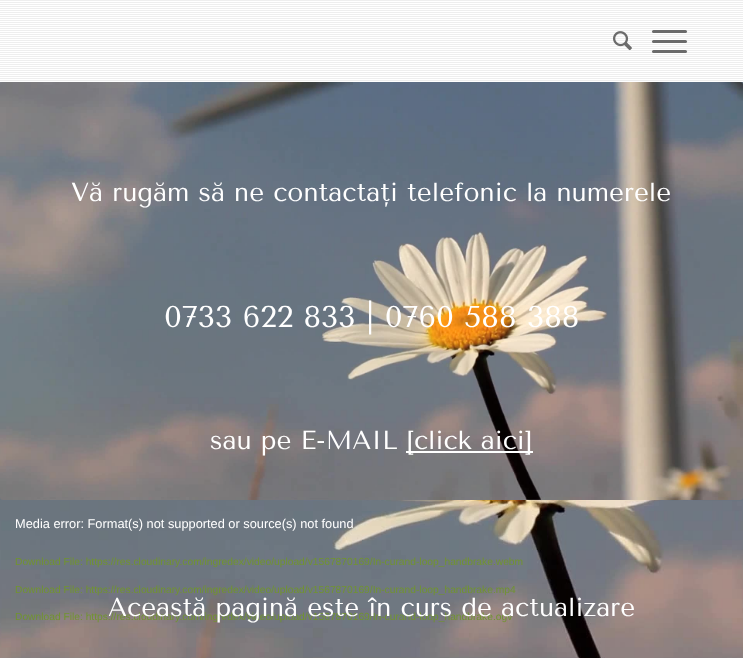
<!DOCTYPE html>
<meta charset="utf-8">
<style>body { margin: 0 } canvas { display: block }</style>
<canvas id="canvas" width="743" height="658"></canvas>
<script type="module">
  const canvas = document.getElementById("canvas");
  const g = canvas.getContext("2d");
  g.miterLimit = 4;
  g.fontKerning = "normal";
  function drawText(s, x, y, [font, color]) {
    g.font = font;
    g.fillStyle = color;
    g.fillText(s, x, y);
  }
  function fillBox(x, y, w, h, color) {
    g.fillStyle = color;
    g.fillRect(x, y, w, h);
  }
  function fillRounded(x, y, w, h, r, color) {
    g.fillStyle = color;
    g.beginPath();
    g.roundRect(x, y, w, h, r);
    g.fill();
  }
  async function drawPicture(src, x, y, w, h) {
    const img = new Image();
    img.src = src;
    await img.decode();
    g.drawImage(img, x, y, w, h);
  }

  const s1 = ["26px Tenor Sans", "#FFFFFF"];
  const s2 = ["30px Tenor Sans", "#FFFFFF"];
  const s3 = ["10.25px Liberation Sans", "#719430"];
  const s4 = ["12.8px Liberation Sans", "#FFFFFF"];

  fillBox(0, 0, 743, 658, "#FFFFFF");
  await drawPicture("pic1.png", 0, 0, 743, 81);
  await drawPicture("pic2.png", 613, 31, 19, 20);
  fillRounded(652, 40, 35, 3, 1.5, "#6B6B6B");
  fillRounded(652, 30, 35, 3, 1.5, "#6B6B6B");
  fillRounded(652, 50, 35, 3, 1.5, "#6B6B6B");
  await drawPicture("pic3.png", 0, 82, 743, 576);
  await drawPicture("pic4.png", 0, 82, 743, 418);
  drawText("Vă rugăm să ne contactați telefonic la numerele", 71, 201, s1);
  drawText("0733 622 833 | 0760 588 388", 164, 327, s2);
  drawText("sau pe E-MAIL", 210, 449, s1);
  fillBox(406, 451, 127, 2, "#FFFFFF");
  drawText("[click aici]", 406, 449, s1);
  drawText("Download File: https://res.cloudinary.com/ingredex/video/upload/v1567870169/In-curand-loop_handbrake.ogv", 15, 620, s3);
  drawText("Această pagină este în curs de actualizare", 108, 616, s1);
  drawText("Media error: Format(s) not supported or source(s) not found", 15, 528, s4);
  drawText("Download File: https://res.cloudinary.com/ingredex/video/upload/v1567870169/In-curand-loop_handbrake.webm", 15, 565, s3);
  drawText("Download File: https://res.cloudinary.com/ingredex/video/upload/v1567870169/In-curand-loop_handbrake.mp4", 15, 593, s3);
</script>
